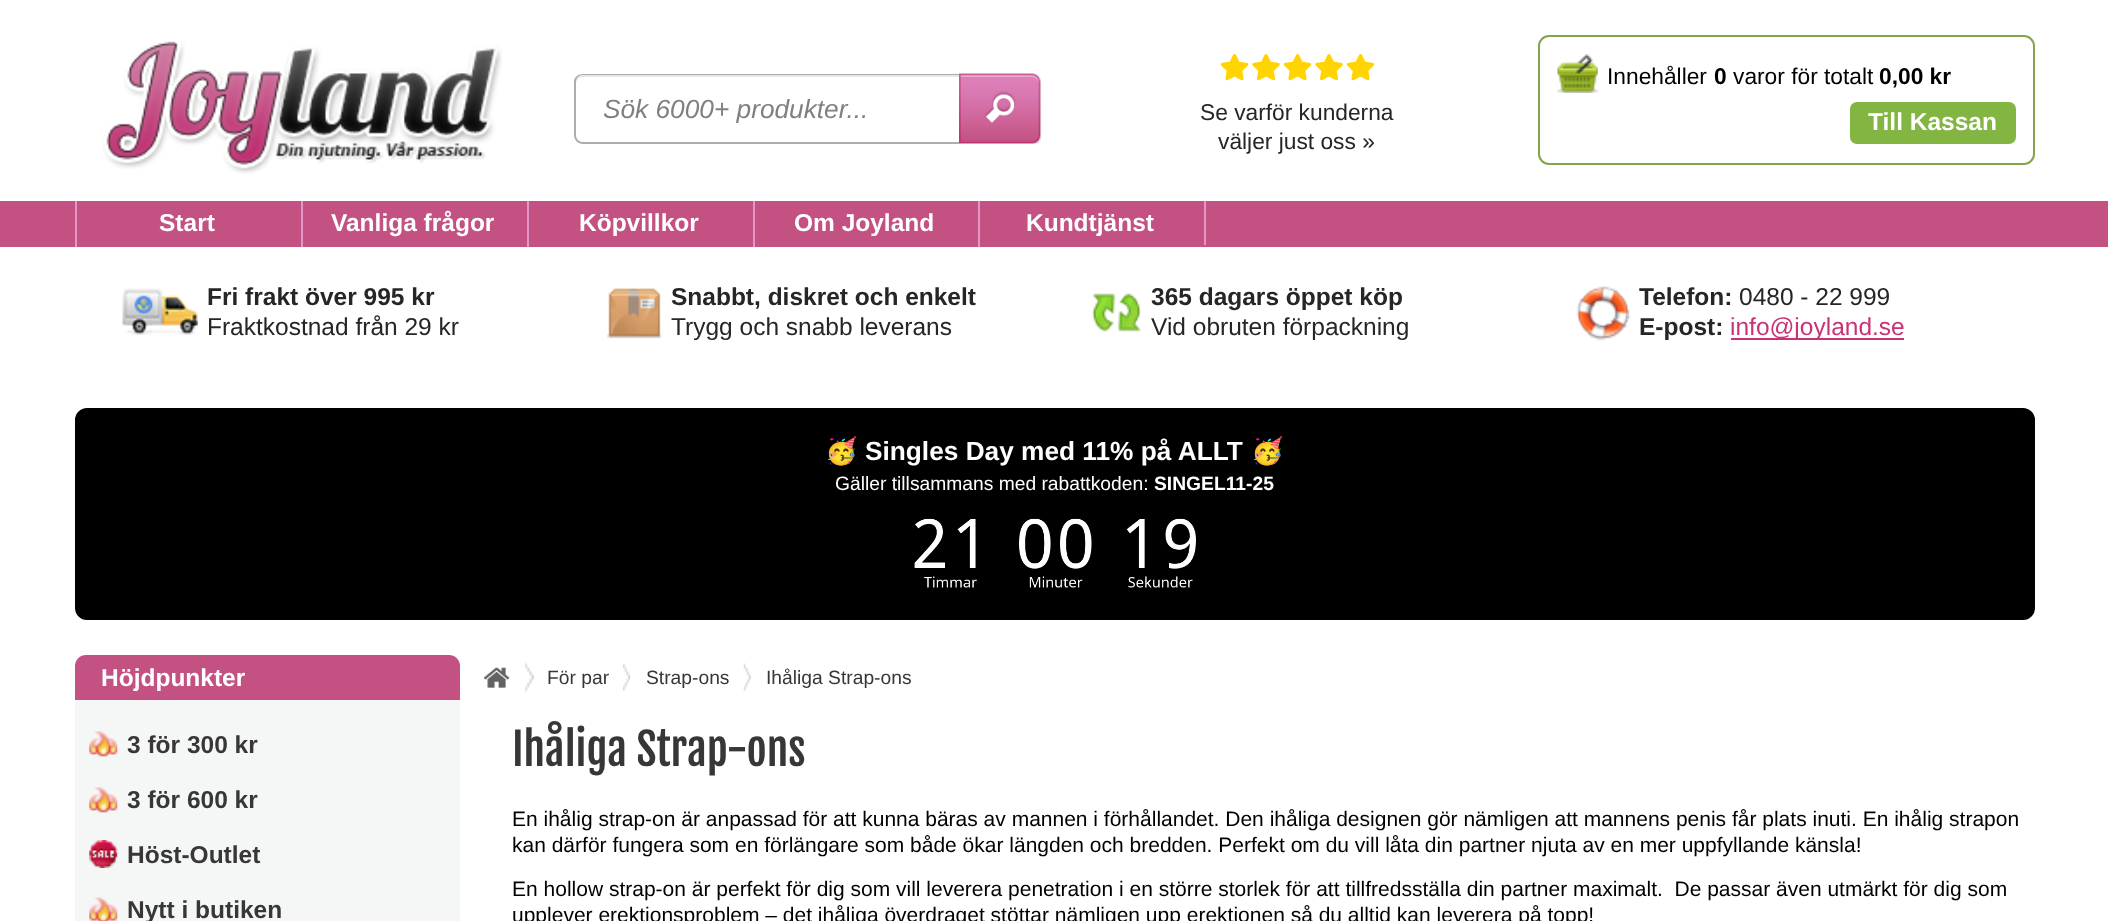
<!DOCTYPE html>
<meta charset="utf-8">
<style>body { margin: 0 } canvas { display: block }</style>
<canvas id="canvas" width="2108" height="921"></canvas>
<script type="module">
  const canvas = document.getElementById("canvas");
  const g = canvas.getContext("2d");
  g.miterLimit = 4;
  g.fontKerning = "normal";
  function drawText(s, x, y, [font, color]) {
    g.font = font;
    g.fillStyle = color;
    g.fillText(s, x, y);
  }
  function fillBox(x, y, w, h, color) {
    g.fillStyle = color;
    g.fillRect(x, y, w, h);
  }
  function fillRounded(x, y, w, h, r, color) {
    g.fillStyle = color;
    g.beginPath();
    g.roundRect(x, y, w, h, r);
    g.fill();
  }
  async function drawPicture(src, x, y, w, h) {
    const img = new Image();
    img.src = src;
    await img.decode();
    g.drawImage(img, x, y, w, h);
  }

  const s1 = ["italic 26.25px Liberation Sans", "#808080"];
  const s2 = ["22.75px Liberation Sans", "#262626"];
  const s3 = ["22.75px Liberation Sans", "#000000"];
  const s4 = ["bold 22.75px Liberation Sans", "#000000"];
  const s5 = ["bold 24.5px Liberation Sans", "#FFFFFF"];
  const s6 = ["bold 24.5px Liberation Sans", "#262626"];
  const s7 = ["24.5px Liberation Sans", "#262626"];
  const s8 = ["24.5px Liberation Sans", "#C93276"];
  const s9 = ["bold 26.25px Noto Color Emoji", "#FFFFFF"];
  const s10 = ["bold 26.25px Liberation Sans", "#FFFFFF"];
  const s11 = ["19.25px Liberation Sans", "#FFFFFF"];
  const s12 = ["bold 19.25px Liberation Sans", "#FFFFFF"];
  const s13 = ["bold 24.5px Liberation Sans", "#373737"];
  const s14 = ["19.25px Liberation Sans", "#373737"];
  const s15 = ["43.75px Fjalla One", "#373737"];
  const s16 = ["21px Liberation Sans", "#000000"];

  fillBox(0, 0, 2108, 921, "#FFFFFF");
  await drawPicture("pic1.png", 102, 41, 400, 133);
  g.fillStyle = "#E9E8E8";
  g.beginPath();
  g.moveTo(583, 77);
  g.lineTo(959, 77);
  g.lineTo(959, 75);
  g.lineTo(583, 75);
  g.bezierCurveTo(579, 75, 576, 78, 576, 82);
  g.lineTo(576, 84);
  g.bezierCurveTo(576, 80, 579, 77, 583, 77);
  g.closePath();
  g.fill();
  g.fillStyle = "#ADADAD";
  g.beginPath();
  g.moveTo(583, 74);
  g.lineTo(959, 74);
  g.lineTo(959, 144);
  g.lineTo(583, 144);
  g.bezierCurveTo(578, 144, 574, 140, 574, 135);
  g.lineTo(574, 82);
  g.bezierCurveTo(574, 77, 578, 74, 583, 74);
  g.closePath();
  g.moveTo(583, 75);
  g.lineTo(959, 75);
  g.lineTo(959, 142);
  g.lineTo(583, 142);
  g.bezierCurveTo(579, 142, 576, 139, 576, 135);
  g.lineTo(576, 82);
  g.bezierCurveTo(576, 78, 579, 75, 583, 75);
  g.closePath();
  g.fill("evenodd");
  g.save();
  g.beginPath();
  g.rect(604, 93, 355, 30);
  g.clip();
  drawText("Sök 6000+ produkter...", 603, 118, s1);
  g.restore();
  await drawPicture("pic2.png", 959, 73, 83, 71);
  await drawPicture("pic3.png", 1220, 54, 29, 27);
  await drawPicture("pic4.png", 1252, 54, 28, 27);
  await drawPicture("pic3.png", 1283, 54, 29, 27);
  await drawPicture("pic4.png", 1315, 54, 28, 27);
  await drawPicture("pic3.png", 1346, 54, 29, 27);
  drawText("Se varför kunderna", 1200, 120, s2);
  drawText("väljer just oss »", 1218, 149, s2);
  g.beginPath();
  g.roundRect(1539, 36, 495, 128, 10);
  g.strokeStyle = "#83A44C";
  g.lineWidth = 2;
  g.stroke();
  await drawPicture("pic5.png", 1557, 54, 41, 39);
  drawText("Innehåller", 1607, 84, s3);
  drawText("0", 1714, 84, s4);
  drawText("varor för totalt", 1733, 84, s3);
  drawText("0,00 kr", 1879, 84, s4);
  fillRounded(1850, 102, 166, 42, 7, "#82B541");
  drawText("Till Kassan", 1868, 130, s5);
  fillBox(0, 201, 2108, 46, "#C35282");
  fillBox(299, 201, 2, 46, "#C45185");
  fillBox(75, 201, 2, 46, "#E395C8");
  drawText("Start", 159, 231, s5);
  fillBox(525, 201, 2, 46, "#C45185");
  fillBox(301, 201, 2, 46, "#E395C8");
  drawText("Vanliga frågor", 331, 231, s5);
  fillBox(751, 201, 2, 46, "#C45185");
  fillBox(527, 201, 2, 46, "#E395C8");
  drawText("Köpvillkor", 579, 231, s5);
  fillBox(977, 201, 1, 46, "#C45185");
  fillBox(753, 201, 2, 46, "#E395C8");
  drawText("Om Joyland", 794, 231, s5);
  fillBox(1202, 201, 2, 46, "#C45185");
  fillBox(978, 201, 2, 46, "#E395C8");
  drawText("Kundtjänst", 1026, 231, s5);
  fillBox(1204, 201, 2, 44, "#E395C8");
  await drawPicture("pic6.png", 122, 288, 76, 47);
  drawText("Fri frakt över 995 kr", 207, 305, s6);
  drawText("Fraktkostnad från 29 kr", 207, 335, s7);
  await drawPicture("pic7.png", 607, 288, 55, 51);
  drawText("Snabbt, diskret och enkelt", 671, 305, s6);
  drawText("Trygg och snabb leverans", 671, 335, s7);
  await drawPicture("pic8.png", 1092, 293, 49, 39);
  drawText("365 dagars öppet köp", 1151, 305, s6);
  drawText("Vid obruten förpackning", 1151, 335, s7);
  await drawPicture("pic9.png", 1576, 285, 54, 56);
  drawText("Telefon:", 1639, 305, s6);
  drawText("0480 - 22 999", 1739, 305, s7);
  drawText("E-post:", 1639, 335, s6);
  fillBox(1731, 338, 173, 2, "#C93276");
  drawText("info@joyland.se", 1730, 335, s8);
  g.fillStyle = "#000000";
  g.beginPath();
  g.roundRect(76, 409, 1958, 210, 11);
  g.fill();
  g.strokeStyle = "#000000";
  g.stroke();
  drawText("🥳", 825, 460, s9);
  drawText("Singles Day med 11% på ALLT", 865, 460, s10);
  drawText("🥳", 1251, 460, s9);
  drawText("Gäller tillsammans med rabattkoden:", 835, 490, s11);
  drawText("SINGEL11-25", 1154, 490, s12);
  await drawPicture("pic10.png", 914, 518, 282, 70);
  fillRounded(75, 655, 385, 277, 11, "#F5F7F7");
  g.fillStyle = "#C35282";
  g.beginPath();
  g.roundRect(75, 655, 385, 45, [11, 11, 0, 0]);
  g.fill();
  drawText("Höjdpunkter", 101, 686, s5);
  await drawPicture("pic11.png", 89, 731, 29, 26);
  drawText("3 för 300 kr", 127, 753, s13);
  await drawPicture("pic11.png", 89, 787, 29, 26);
  drawText("3 för 600 kr", 127, 808, s13);
  await drawPicture("pic12.png", 89, 840, 29, 28);
  drawText("Höst-Outlet", 127, 863, s13);
  await drawPicture("pic13.png", 89, 897, 29, 24);
  drawText("Nytt i butiken", 127, 918, s13);
  await drawPicture("pic14.png", 483, 667, 27, 21);
  await drawPicture("pic15.png", 525, 660, 9, 34);
  drawText("För par", 547, 684, s14);
  await drawPicture("pic16.png", 623, 663, 7, 29);
  drawText("Strap-ons", 646, 684, s14);
  await drawPicture("pic17.png", 743, 663, 8, 29);
  drawText("Ihåliga Strap-ons", 766, 684, s14);
  drawText("Ihåliga Strap-ons", 512, 766, s15);
  drawText("En ihålig strap-on är anpassad för att kunna bäras av mannen i förhållandet. Den ihåliga designen gör nämligen att mannens penis får plats inuti. En ihålig strapon", 512, 826, s16);
  drawText("kan därför fungera som en förlängare som både ökar längden och bredden. Perfekt om du vill låta din partner njuta av en mer uppfyllande känsla!", 512, 852, s16);
  drawText("En hollow strap-on är perfekt för dig som vill leverera penetration i en större storlek för att tillfredsställa din partner maximalt.  De passar även utmärkt för dig som", 512, 896, s16);
  drawText("upplever erektionsproblem – det ihåliga överdraget stöttar nämligen upp erektionen så du alltid kan leverera på topp!", 512, 922, s16);
</script>
